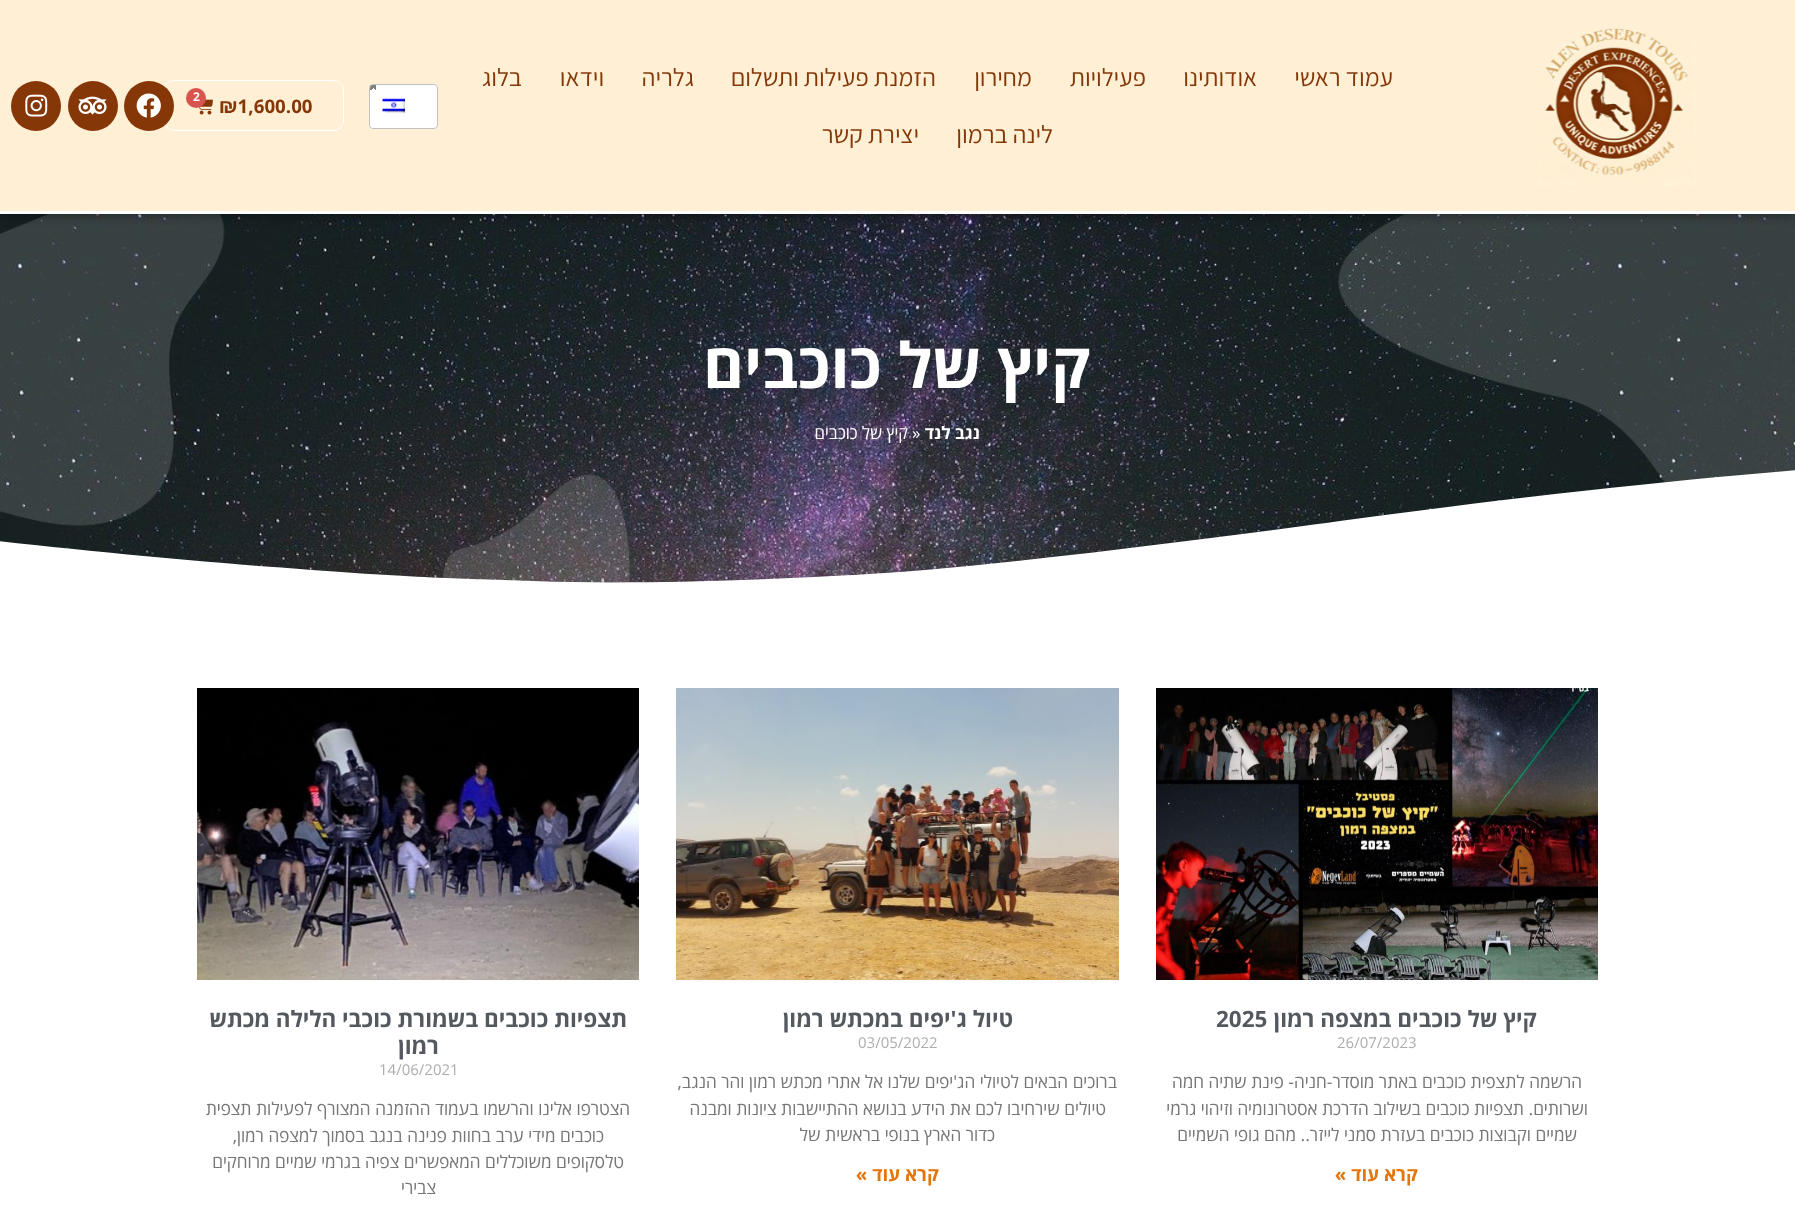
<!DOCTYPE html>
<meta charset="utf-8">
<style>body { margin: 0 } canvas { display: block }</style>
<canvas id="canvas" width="1795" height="1215"></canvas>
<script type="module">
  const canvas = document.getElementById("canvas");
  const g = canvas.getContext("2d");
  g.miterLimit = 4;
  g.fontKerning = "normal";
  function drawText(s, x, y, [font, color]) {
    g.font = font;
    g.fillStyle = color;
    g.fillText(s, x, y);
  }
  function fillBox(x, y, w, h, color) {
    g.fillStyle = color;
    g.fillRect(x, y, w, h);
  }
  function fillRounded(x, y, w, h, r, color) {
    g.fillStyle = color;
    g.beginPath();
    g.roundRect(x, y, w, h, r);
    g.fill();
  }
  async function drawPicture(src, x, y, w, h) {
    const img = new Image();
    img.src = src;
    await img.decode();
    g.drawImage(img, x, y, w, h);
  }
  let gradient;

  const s1 = ["25px Assistant", "#853707"];
  const s2 = ["bold 12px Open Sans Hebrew", "#FFFFFF"];
  const s3 = ["bold 18.75px Open Sans Hebrew", "#853707"];
  const s4 = ["bold 62.5px Open Sans Hebrew", "#FFFFFF"];
  const s5 = ["bold 17px Open Sans Hebrew", "#FFFFFF"];
  const s6 = ["17px Open Sans Hebrew", "#FFFFFF"];
  const s7 = ["bold 22.5px Open Sans Hebrew", "#54595F"];
  const s8 = ["15px Open Sans Hebrew", "#ADADAD"];
  const s9 = ["17.5px Open Sans Hebrew", "#777777"];
  const s10 = ["bold 18.75px Open Sans Hebrew", "#E3750A"];

  fillBox(0, 0, 1795, 1215, "#FFFFFF");
  await drawPicture("pic7.png", 0, 214, 1795, 369);
  await drawPicture("pic8.png", 0, 214, 1795, 369);
  g.fillStyle = "rgba(0, 0, 0, 0.5)";
  g.filter = "blur(6px)";
  g.beginPath();
  g.rect(0, 0, 1795, 214);
  g.fill();
  g.filter = "none";
  fillBox(0, 0, 1795, 211, "#FFEFD5");
  fillBox(0, 211, 1795, 3, "#FFFFFF");
  await drawPicture("pic1.png", 1538, 28, 158, 158);
  g.direction = "rtl";
  drawText("עמוד ראשי", 1393, 86, s1);
  drawText("אודותינו", 1257, 86, s1);
  drawText("פעילויות", 1146, 86, s1);
  drawText("מחירון", 1032, 86, s1);
  drawText("הזמנת פעילות ותשלום", 936, 86, s1);
  drawText("גלריה", 694, 86, s1);
  drawText("וידאו", 604, 86, s1);
  drawText("בלוג", 522, 86, s1);
  drawText("לינה ברמון", 1053, 143, s1);
  drawText("יצירת קשר", 919, 143, s1);
  fillRounded(369, 84, 69, 45, 4, "#FFFFFF");
  gradient = g.createLinearGradient(370, 85, 376, 91);
  gradient.addColorStop(0.5, "#808080");
  gradient.addColorStop(0.5, "rgba(128, 128, 128, 0)");
  g.fillStyle = gradient;
  g.fillRect(370, 85, 6, 5);
  gradient = g.createLinearGradient(370, 91, 376, 85);
  gradient.addColorStop(0.5, "rgba(128, 128, 128, 0)");
  gradient.addColorStop(0.5, "#808080");
  g.fillStyle = gradient;
  g.fillRect(370, 86, 6, 4);
  g.beginPath();
  g.roundRect(369.5, 84.5, 68, 44, 3.5);
  g.strokeStyle = "#C1C1C1";
  g.stroke();
  await drawPicture("pic2.png", 382, 98, 23, 15);
  g.beginPath();
  g.roundRect(164.5, 80.5, 179, 50, 9.5);
  g.strokeStyle = "#FFFFFF";
  g.stroke();
  await drawPicture("pic3.png", 199, 99, 14, 16);
  g.fillStyle = "#D9534F";
  g.beginPath();
  g.arc(196, 98, 10, 0, Math.PI * 2);
  g.fill();
  g.direction = "ltr";
  drawText("2", 193, 101, s2);
  drawText("₪1,600.00", 219, 113, s3);
  g.beginPath();
  g.arc(149, 106, 25, 0, Math.PI * 2);
  g.fill();
  await drawPicture("pic4.png", 136, 93, 25, 25);
  g.beginPath();
  g.arc(93, 106, 25, 0, Math.PI * 2);
  g.fill();
  await drawPicture("pic5.png", 78, 96, 29, 19);
  g.beginPath();
  g.arc(36, 106, 25, 0, Math.PI * 2);
  g.fill();
  await drawPicture("pic6.png", 25, 94, 23, 23);
  g.direction = "rtl";
  drawText("קיץ של כוכבים", 1091, 388, s4);
  drawText("נגב לנד", 980, 439, s5);
  g.direction = "ltr";
  drawText("»", 912, 439, s6);
  g.direction = "rtl";
  drawText("קיץ של כוכבים", 908, 439, s6);
  g.save();
  g.beginPath();
  g.rect(0, 440, 1795, 150);
  g.clip();
  g.beginPath();
  g.moveTo(533, 581);
  g.bezierCurveTo(638, 585, 773, 580, 885, 573);
  g.bezierCurveTo(996, 566, 1216, 538, 1355, 519);
  g.bezierCurveTo(1708, 471, 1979, 453, 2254, 445);
  g.bezierCurveTo(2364, 442, 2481, 440, 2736, 449);
  g.bezierCurveTo(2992, 458, 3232, 487, 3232, 487);
  g.lineTo(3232, 591);
  g.lineTo(-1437, 591);
  g.lineTo(-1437, 545);
  g.bezierCurveTo(-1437, 545, -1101, 496, -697, 499);
  g.bezierCurveTo(-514, 500, -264, 509, -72, 533);
  g.bezierCurveTo(27, 545, 172, 560, 300, 569);
  g.bezierCurveTo(427, 579, 485, 579, 533, 581);
  g.closePath();
  g.fill();
  g.restore();
  await drawPicture("pic9.png", 1156, 688, 442, 292);
  drawText("קיץ של כוכבים במצפה רמון", 1537, 1027, s7);
  g.direction = "ltr";
  drawText("2025", 1216, 1027, s7);
  drawText("26/07/2023", 1337, 1048, s8);
  g.direction = "rtl";
  drawText("הרשמה לתצפית כוכבים באתר מוסדר-חניה- פינת שתיה חמה", 1582, 1088, s9);
  drawText("ושרותים. תצפיות כוכבים בשילוב הדרכת אסטרונומיה וזיהוי גרמי", 1588, 1115, s9);
  drawText("שמיים וקבוצות כוכבים בעזרת סמני לייזר.. מהם גופי השמיים", 1577, 1141, s9);
  drawText("קרא עוד »", 1418, 1181, s10);
  await drawPicture("pic10.png", 676, 688, 443, 292);
  drawText("טיול ג'יפים במכתש רמון", 1013, 1027, s7);
  g.direction = "ltr";
  drawText("03/05/2022", 858, 1048, s8);
  g.direction = "rtl";
  drawText("ברוכים הבאים לטיולי הג'יפים שלנו אל אתרי מכתש רמון והר הנגב,", 1117, 1088, s9);
  drawText("טיולים שירחיבו לכם את הידע בנושא ההתיישבות ציונות ומבנה", 1106, 1115, s9);
  drawText("כדור הארץ בנופי בראשית של", 995, 1141, s9);
  drawText("קרא עוד »", 939, 1181, s10);
  await drawPicture("pic11.png", 197, 688, 442, 292);
  drawText("תצפיות כוכבים בשמורת כוכבי הלילה מכתש", 627, 1027, s7);
  drawText("רמון", 439, 1054, s7);
  g.direction = "ltr";
  drawText("14/06/2021", 379, 1075, s8);
  g.direction = "rtl";
  drawText("הצטרפו אלינו והרשמו בעמוד ההזמנה המצורף לפעילות תצפית", 630, 1115, s9);
  drawText("כוכבים מידי ערב בחוות פנינה בנגב בסמוך למצפה רמון,", 604, 1142, s9);
  drawText("טלסקופים משוכללים המאפשרים צפיה בגרמי שמיים מרוחקים", 624, 1168, s9);
  drawText("צבירי", 436, 1194, s9);
</script>
